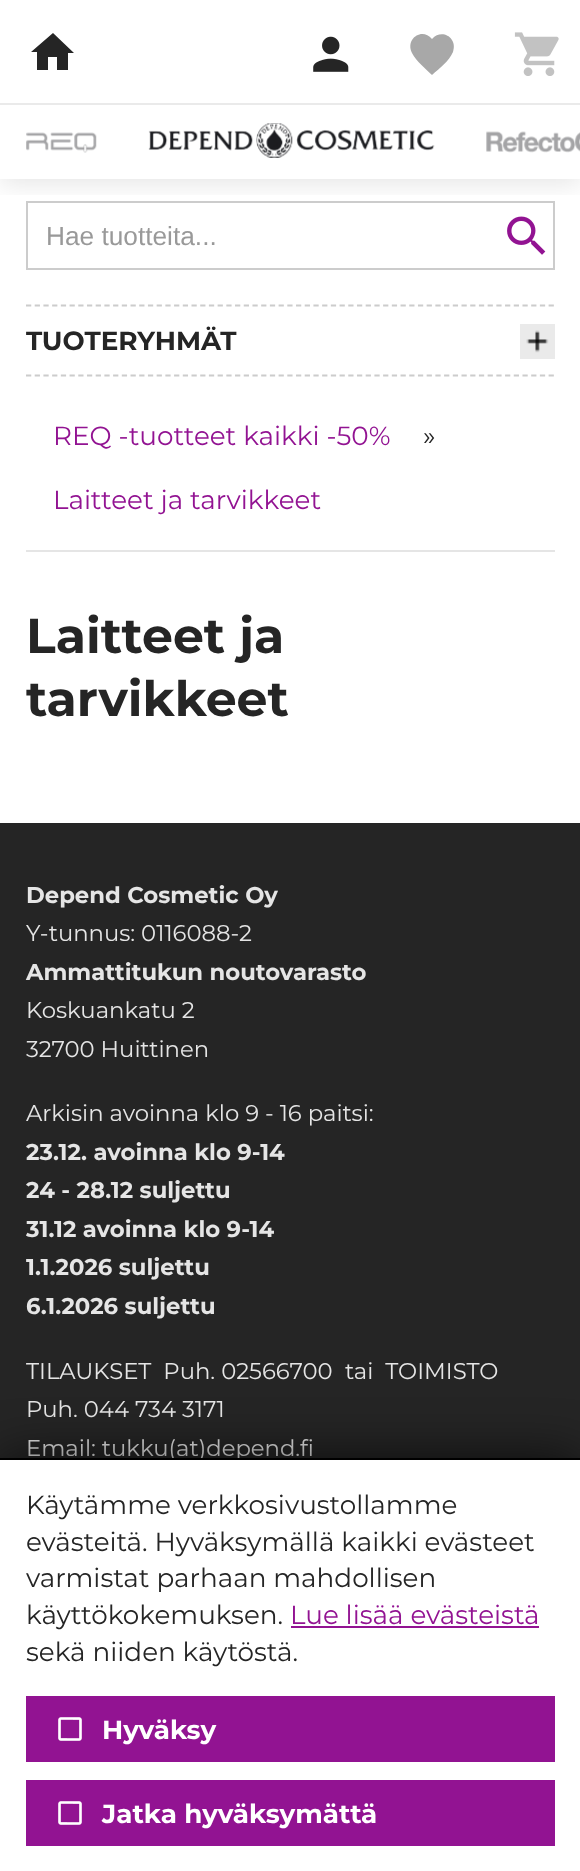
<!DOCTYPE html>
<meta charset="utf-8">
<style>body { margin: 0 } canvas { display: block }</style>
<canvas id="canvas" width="580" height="1871"></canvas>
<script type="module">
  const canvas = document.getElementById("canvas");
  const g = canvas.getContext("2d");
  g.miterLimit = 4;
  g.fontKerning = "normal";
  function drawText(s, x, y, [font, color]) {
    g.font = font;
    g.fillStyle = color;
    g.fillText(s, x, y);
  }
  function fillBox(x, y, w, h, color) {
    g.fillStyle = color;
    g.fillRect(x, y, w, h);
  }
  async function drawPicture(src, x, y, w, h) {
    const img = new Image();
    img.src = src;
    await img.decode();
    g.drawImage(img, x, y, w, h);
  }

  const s1 = ["26.25px Liberation Sans", "#999999"];
  const s2 = ["bold 26.25px Montserrat", "#252525"];
  const s3 = ["26.25px Montserrat", "#921392"];
  const s4 = ["26.25px Montserrat", "#252525"];
  const s5 = ["bold 49px Montserrat", "#252525"];
  const s6 = ["bold 22.75px Montserrat", "#E5E5E5"];
  const s7 = ["22.75px Montserrat", "#E5E5E5"];
  const s8 = ["bold 26.25px Montserrat", "#FFFFFF"];

  fillBox(0, 0, 580, 1871, "#252525");
  fillBox(0, 0, 580, 823, "#FFFFFF");
  g.strokeStyle = "#CCCCCC";
  g.lineWidth = 2;
  g.strokeRect(27, 202, 527, 67);
  await drawPicture("pic6.png", 507, 216, 39, 39);
  g.save();
  g.beginPath();
  g.rect(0, 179, 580, 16);
  g.clip();
  g.fillStyle = "rgba(0, 0, 0, 0.1)";
  g.filter = "blur(13px)";
  g.beginPath();
  g.rect(0, 9, 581, 175);
  g.fill();
  g.filter = "none";
  g.restore();
  fillBox(0, 103, 580, 2, "#EAEAEA");
  g.fillStyle = "#252525";
  g.beginPath();
  g.moveTo(48, 70);
  g.lineTo(37, 70);
  g.lineTo(37, 52);
  g.lineTo(31, 52);
  g.lineTo(53, 33);
  g.lineTo(74, 53);
  g.lineTo(68, 53);
  g.lineTo(68, 70);
  g.lineTo(57, 70);
  g.lineTo(57, 57);
  g.lineTo(48, 57);
  g.closePath();
  g.fill();
  await drawPicture("pic1.png", 313, 36, 36, 36);
  g.fillStyle = "#A8A8A8";
  g.beginPath();
  g.moveTo(432, 75);
  g.bezierCurveTo(426, 69, 416, 61, 412, 53);
  g.bezierCurveTo(405, 39, 422, 27, 432, 39);
  g.bezierCurveTo(442, 28, 458, 38, 453, 52);
  g.bezierCurveTo(449, 61, 440, 68, 432, 75);
  g.closePath();
  g.fill();
  await drawPicture("pic2.png", 514, 32, 45, 44);
  fillBox(0, 175, 580, 4, "#FFFFFF");
  await drawPicture("pic3.png", 26, 132, 71, 21);
  await drawPicture("pic4.png", 148, 123, 287, 35);
  await drawPicture("pic5.png", 486, 131, 94, 22);
  drawText("Hae tuotteita...", 46, 245, s1);
  g.beginPath();
  g.moveTo(26, 305.5);
  g.lineTo(555, 305.5);
  g.lineWidth = 1.8;
  g.setLineDash([5.25, 3.46]);
  g.stroke();
  g.beginPath();
  g.moveTo(26, 375.5);
  g.lineTo(555, 375.5);
  g.stroke();
  drawText("TUOTERYHMÄT", 26, 350, s2);
  fillBox(520, 324, 35, 35, "#EAEAEA");
  await drawPicture("pic7.png", 526, 330, 23, 23);
  fillBox(26, 550, 529, 2, "#E5E5E5");
  drawText("REQ -tuotteet kaikki -50%", 53, 445, s3);
  drawText("»", 423, 445, s4);
  drawText("Laitteet ja tarvikkeet", 53, 509, s3);
  drawText("Laitteet ja", 26, 653, s5);
  drawText("tarvikkeet", 26, 716, s5);
  drawText("Depend Cosmetic Oy", 26, 903, s6);
  drawText("Y-tunnus: 0116088-2", 26, 941, s7);
  drawText("Ammattitukun noutovarasto", 26, 980, s6);
  drawText("Koskuankatu 2", 26, 1018, s7);
  drawText("32700 Huittinen", 26, 1057, s7);
  drawText("Arkisin avoinna klo 9 - 16 paitsi:", 26, 1121, s7);
  drawText("23.12. avoinna klo 9-14", 26, 1160, s6);
  drawText("24 - 28.12 suljettu", 26, 1198, s6);
  drawText("31.12 avoinna klo 9-14", 26, 1237, s6);
  drawText("1.1.2026 suljettu", 26, 1275, s6);
  drawText("6.1.2026 suljettu", 26, 1314, s6);
  drawText("TILAUKSET  Puh. 02566700", 26, 1379, s7);
  drawText("tai  TOIMISTO", 345, 1379, s7);
  drawText("Puh. 044 734 3171", 26, 1417, s7);
  drawText("Email: tukku(at)depend.fi", 26, 1456, s7);
  g.fillStyle = "rgba(0, 0, 0, 0.7)";
  g.filter = "blur(26px)";
  g.beginPath();
  g.rect(0, 1458, 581, 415);
  g.fill();
  g.filter = "none";
  fillBox(0, 1460, 580, 411, "#FFFFFF");
  fillBox(0, 1458, 580, 2, "#000000");
  drawText("Käytämme verkkosivustollamme", 26, 1514, s4);
  drawText("evästeitä. Hyväksymällä kaikki evästeet", 26, 1551, s4);
  drawText("varmistat parhaan mahdollisen", 26, 1587, s4);
  drawText("käyttökokemuksen.", 26, 1624, s4);
  drawText("Lue lisää evästeistä", 290, 1624, s3);
  fillBox(291, 1626, 248, 2, "#921392");
  drawText("sekä niiden käytöstä.", 26, 1661, s4);
  fillBox(26, 1696, 529, 66, "#921392");
  await drawPicture("pic8.png", 58, 1717, 24, 24);
  drawText("Hyväksy", 102, 1739, s8);
  fillBox(26, 1780, 529, 66, "#921392");
  await drawPicture("pic8.png", 58, 1801, 24, 24);
  drawText("Jatka hyväksymättä", 102, 1823, s8);
</script>
